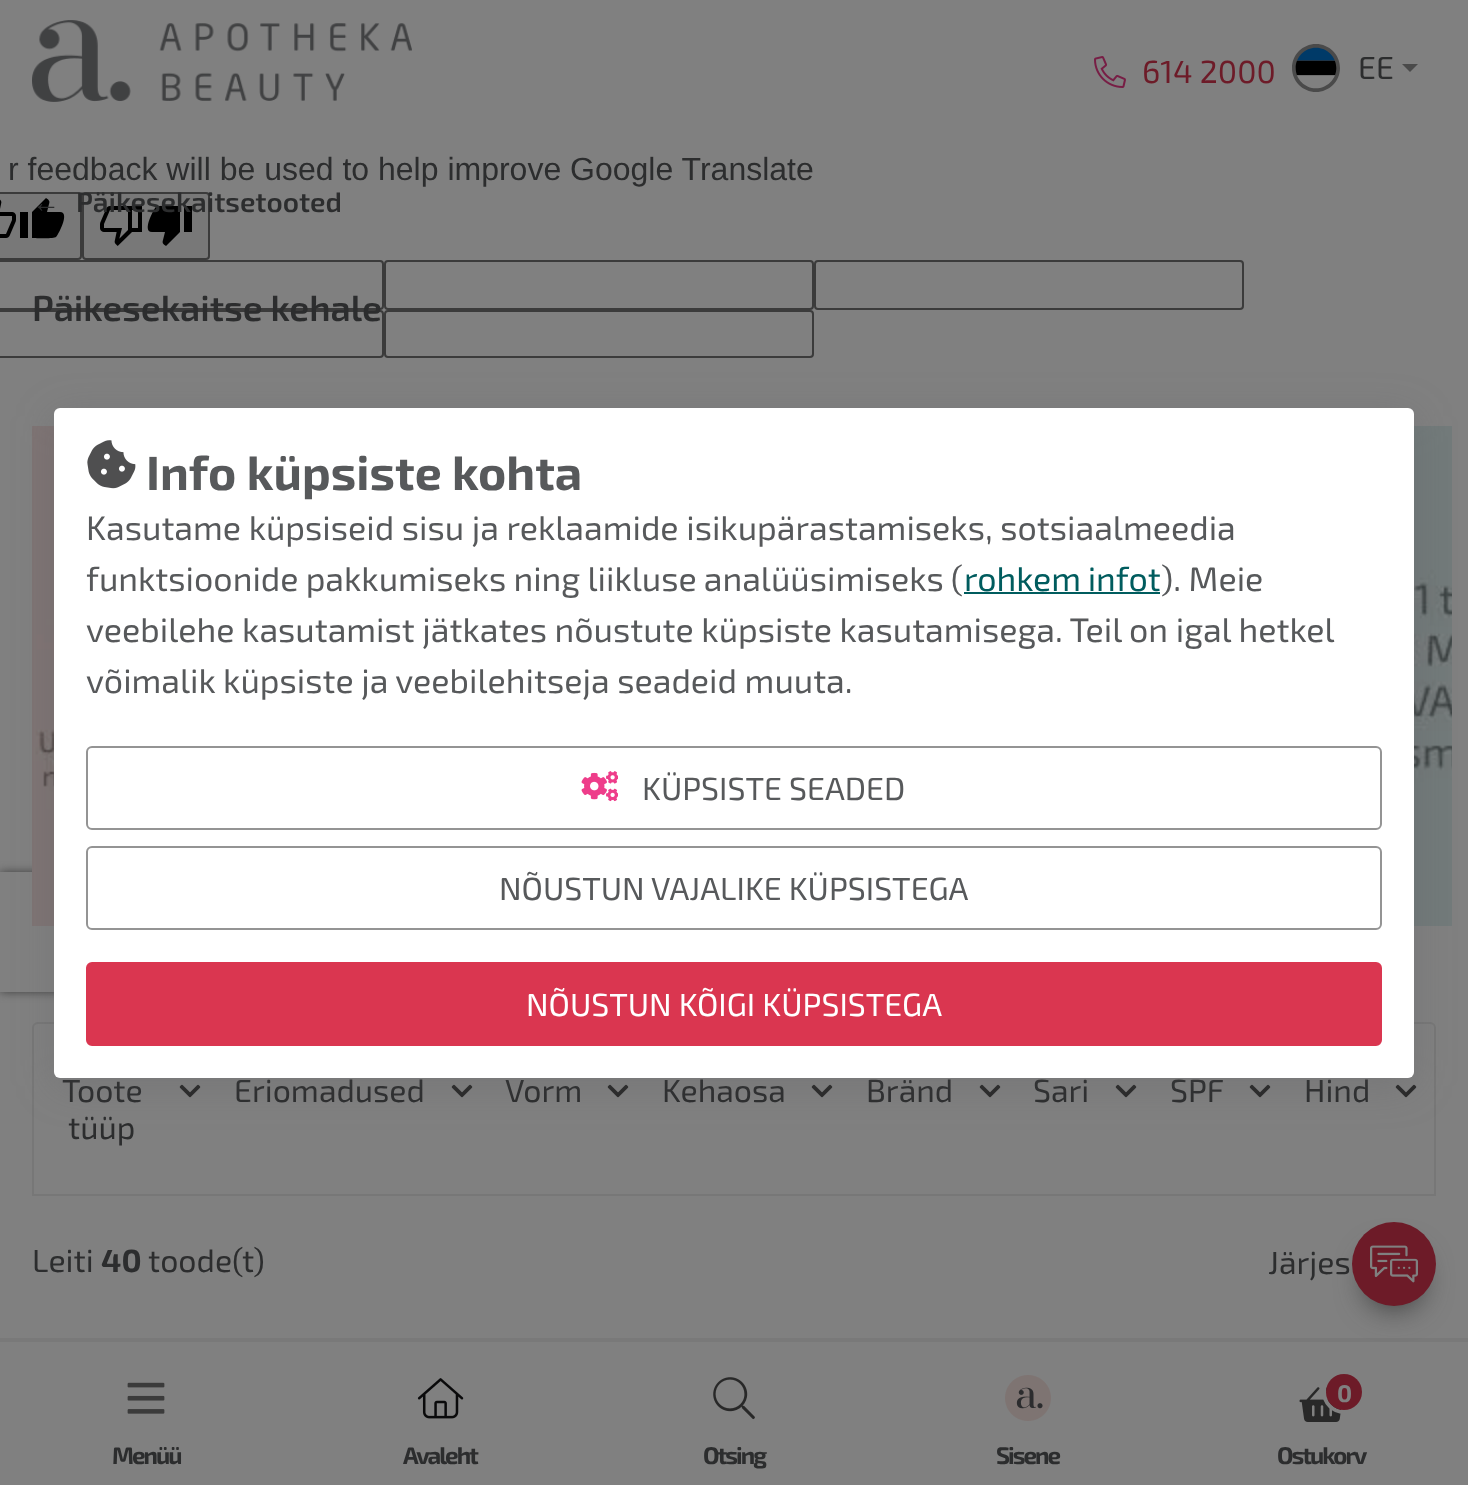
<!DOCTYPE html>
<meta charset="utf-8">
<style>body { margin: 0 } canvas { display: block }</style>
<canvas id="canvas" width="1468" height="1485"></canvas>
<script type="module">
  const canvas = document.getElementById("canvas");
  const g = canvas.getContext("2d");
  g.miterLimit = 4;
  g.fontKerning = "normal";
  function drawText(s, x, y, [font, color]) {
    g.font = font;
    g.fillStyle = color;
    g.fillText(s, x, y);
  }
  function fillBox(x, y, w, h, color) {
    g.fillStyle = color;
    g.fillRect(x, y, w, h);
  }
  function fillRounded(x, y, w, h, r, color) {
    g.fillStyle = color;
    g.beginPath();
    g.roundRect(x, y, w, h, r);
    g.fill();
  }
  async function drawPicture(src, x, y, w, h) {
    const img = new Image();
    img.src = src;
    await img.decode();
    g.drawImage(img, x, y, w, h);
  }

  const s1 = ["32px 'Exo 2'", "#6D1B28"];
  const s2 = ["32px 'Exo 2'", "#2C2D2E"];
  const s3 = ["bold 28px Liberation Sans", "#2C2D2E"];
  const s4 = ["600 28px 'Exo 2'", "#2C2D2E"];
  const s5 = ["600 36px 'Exo 2'", "#2C2D2E"];
  const s6 = ["bold 32px 'Exo 2'", "#2C2D2E"];
  const s7 = ["bold 24px 'Exo 2'", "#2C2D2E"];
  const s8 = ["bold 24px 'Exo 2'", "#808080"];
  const s9 = ["32px Liberation Sans", "#2C2D2E"];
  const s10 = ["bold 48px 'Exo 2'", "#57595B"];
  const s11 = ["34px 'Exo 2'", "#57595B"];
  const s12 = ["34px 'Exo 2'", "#005C5E"];
  const s13 = ["32px 'Exo 2'", "#57595B"];
  const s14 = ["32px 'Exo 2'", "#FFFFFF"];

  fillBox(0, 0, 1468, 1485, "#808080");
  await drawPicture("pic1.png", 1094, 56, 32, 32);
  drawText("614 2000", 1142, 83, s1);
  await drawPicture("pic2.png", 1292, 44, 48, 48);
  drawText("EE", 1358, 79, s2);
  g.fillStyle = "#4A4A4A";
  g.beginPath();
  g.moveTo(1402, 64);
  g.lineTo(1418, 64);
  g.lineTo(1410, 72);
  g.closePath();
  g.fill();
  g.fillStyle = "#787878";
  g.beginPath();
  g.roundRect(-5, 193, 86, 66, 3);
  g.fill();
  g.strokeStyle = "#3B3B3B";
  g.lineWidth = 2;
  g.stroke();
  g.fillStyle = "#000000";
  g.beginPath();
  g.moveTo(60, 212);
  g.lineTo(47, 212);
  g.lineTo(49, 204);
  g.bezierCurveTo(50, 201, 49, 200, 46, 198);
  g.lineTo(32, 212);
  g.lineTo(32, 238);
  g.bezierCurveTo(36, 238, 54, 239, 56, 237);
  g.bezierCurveTo(57, 237, 71, 212, 60, 212);
  g.closePath();
  g.moveTo(28, 212);
  g.lineTo(20, 212);
  g.lineTo(20, 238);
  g.lineTo(28, 238);
  g.closePath();
  g.fill();
  drawText("←", 32, 212, s3);
  g.fillStyle = "#787878";
  g.beginPath();
  g.roundRect(83, 193, 126, 66, 3);
  g.fill();
  g.stroke();
  await drawPicture("pic14.png", 100, 206, 42, 40);
  g.fillStyle = "#000000";
  g.beginPath();
  g.moveTo(152, 232);
  g.lineTo(165, 232);
  g.lineTo(163, 240);
  g.bezierCurveTo(162, 243, 163, 244, 166, 246);
  g.lineTo(180, 232);
  g.lineTo(180, 206);
  g.bezierCurveTo(176, 206, 158, 205, 156, 207);
  g.bezierCurveTo(155, 207, 141, 232, 152, 232);
  g.closePath();
  g.moveTo(184, 232);
  g.lineTo(192, 232);
  g.lineTo(192, 206);
  g.lineTo(184, 206);
  g.closePath();
  g.fill();
  drawText("Päikesekaitsetooted", 76, 212, s4);
  g.beginPath();
  g.roundRect(-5, 261, 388, 48, 3);
  g.stroke();
  g.beginPath();
  g.roundRect(-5, 311, 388, 46, 3);
  g.stroke();
  drawText("Päikesekaitse kehale", 32, 321, s5);
  g.save();
  g.beginPath();
  g.moveTo(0, 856);
  g.lineTo(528, 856);
  g.lineTo(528, 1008);
  g.lineTo(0, 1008);
  g.closePath();
  g.moveTo(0, 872);
  g.lineTo(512, 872);
  g.lineTo(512, 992);
  g.lineTo(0, 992);
  g.closePath();
  g.clip("evenodd");
  g.fillStyle = "#404040";
  g.filter = "blur(5px)";
  g.beginPath();
  g.rect(0, 872, 512, 120);
  g.fill();
  g.filter = "none";
  g.restore();
  await drawPicture("pic3.png", 32, 426, 22, 500);
  await drawPicture("pic4.png", 1414, 426, 38, 500);
  g.beginPath();
  g.roundRect(33, 1023, 1402, 172, [5, 5, 0, 0]);
  g.strokeStyle = "#777777";
  g.stroke();
  drawText("Toote", 62, 1102, s2);
  await drawPicture("pic5.png", 179, 1084, 22, 14);
  drawText("tüüp", 68, 1139, s2);
  drawText("Eriomadused", 234, 1102, s2);
  await drawPicture("pic5.png", 451, 1084, 22, 14);
  drawText("Vorm", 505, 1102, s2);
  await drawPicture("pic5.png", 607, 1084, 22, 14);
  drawText("Kehaosa", 662, 1102, s2);
  await drawPicture("pic5.png", 811, 1084, 22, 14);
  drawText("Bränd", 866, 1102, s2);
  await drawPicture("pic5.png", 979, 1084, 22, 14);
  drawText("Sari", 1033, 1102, s2);
  await drawPicture("pic5.png", 1115, 1084, 22, 14);
  drawText("SPF", 1170, 1102, s2);
  await drawPicture("pic5.png", 1249, 1084, 22, 14);
  drawText("Hind", 1304, 1102, s2);
  await drawPicture("pic5.png", 1395, 1084, 22, 14);
  drawText("Leiti", 32, 1272, s2);
  drawText("40", 101, 1272, s6);
  drawText("toode(t)", 148, 1272, s2);
  drawText("Järjes", 1268, 1274, s2);
  fillBox(0, 1338, 1468, 4, "#797979");
  g.fillStyle = "#282828";
  g.filter = "blur(16px)";
  g.beginPath();
  g.roundRect(1368, 1254, 52, 52, 26);
  g.fill();
  g.filter = "none";
  g.fillStyle = "#6D1B28";
  g.beginPath();
  g.arc(1394, 1264, 42, 0, Math.PI * 2);
  g.fill();
  await drawPicture("pic6.png", 1370, 1245, 48, 38);
  await drawPicture("pic7.png", 32, 20, 380, 82);
  await drawPicture("pic8.png", 127, 1382, 38, 32);
  g.letterSpacing = "-2px";
  drawText("Menüü", 112, 1464, s7);
  await drawPicture("pic9.png", 417, 1378, 47, 41);
  drawText("Avaleht", 403, 1464, s7);
  await drawPicture("pic10.png", 713, 1377, 42, 43);
  drawText("Otsing", 703, 1464, s7);
  await drawPicture("pic11.png", 1005, 1375, 46, 46);
  drawText("Sisene", 996, 1464, s7);
  await drawPicture("pic12.png", 1299, 1387, 43, 35);
  g.beginPath();
  g.arc(1344, 1392, 20, 0, Math.PI * 2);
  g.strokeStyle = "#808080";
  g.lineWidth = 4;
  g.stroke();
  g.fillStyle = "#6D1B28";
  g.beginPath();
  g.arc(1344, 1392, 18, 0, Math.PI * 2);
  g.fill();
  drawText("0", 1337, 1402, s8);
  drawText("Ostukorv", 1277, 1464, s7);
  g.letterSpacing = "0px";
  drawText("r feedback will be used to help improve Google Translate", 8, 180, s9);
  await drawPicture("pic13.png", 0, 199, 16, 39);
  g.beginPath();
  g.roundRect(385, 261, 428, 48, 3);
  g.strokeStyle = "#3B3B3B";
  g.lineWidth = 2;
  g.stroke();
  g.beginPath();
  g.roundRect(815, 261, 428, 48, 3);
  g.stroke();
  g.beginPath();
  g.roundRect(385, 311, 428, 46, 3);
  g.stroke();
  g.fillStyle = "rgba(87, 89, 91, 0.25)";
  g.filter = "blur(20px)";
  g.beginPath();
  g.roundRect(54, 416, 1360, 670, 6);
  g.fill();
  g.filter = "none";
  fillRounded(54, 408, 1360, 670, 6, "#FFFFFF");
  await drawPicture("pic15.png", 87, 440, 49, 49);
  drawText("Info küpsiste kohta", 146, 490, s10);
  drawText("Kasutame küpsiseid sisu ja reklaamide isikupärastamiseks, sotsiaalmeedia", 86, 540, s11);
  g.wordSpacing = "-0.5px";
  drawText("funktsioonide pakkumiseks ning liikluse analüüsimiseks (", 86, 591, s11);
  g.wordSpacing = "-1px";
  drawText("rohkem infot", 964, 591, s12);
  fillBox(964, 592, 196, 2, "#005C5E");
  g.wordSpacing = "0px";
  drawText("). Meie", 1161, 591, s11);
  drawText("veebilehe kasutamist jätkates nõustute küpsiste kasutamisega. Teil on igal hetkel", 86, 642, s11);
  drawText("võimalik küpsiste ja veebilehitseja seadeid muuta.", 86, 693, s11);
  g.beginPath();
  g.roundRect(87, 747, 1294, 82, 5);
  g.strokeStyle = "#949494";
  g.stroke();
  await drawPicture("pic16.png", 581, 771, 37, 31);
  drawText("KÜPSISTE SEADED", 642, 800, s13);
  g.beginPath();
  g.roundRect(87, 847, 1294, 82, 5);
  g.stroke();
  drawText("NÕUSTUN VAJALIKE KÜPSISTEGA", 499, 900, s13);
  g.fillStyle = "#DA3650";
  g.beginPath();
  g.roundRect(87, 963, 1294, 82, 5);
  g.fill();
  g.strokeStyle = "#DA3650";
  g.stroke();
  drawText("NÕUSTUN KÕIGI KÜPSISTEGA", 526, 1016, s14);
</script>
